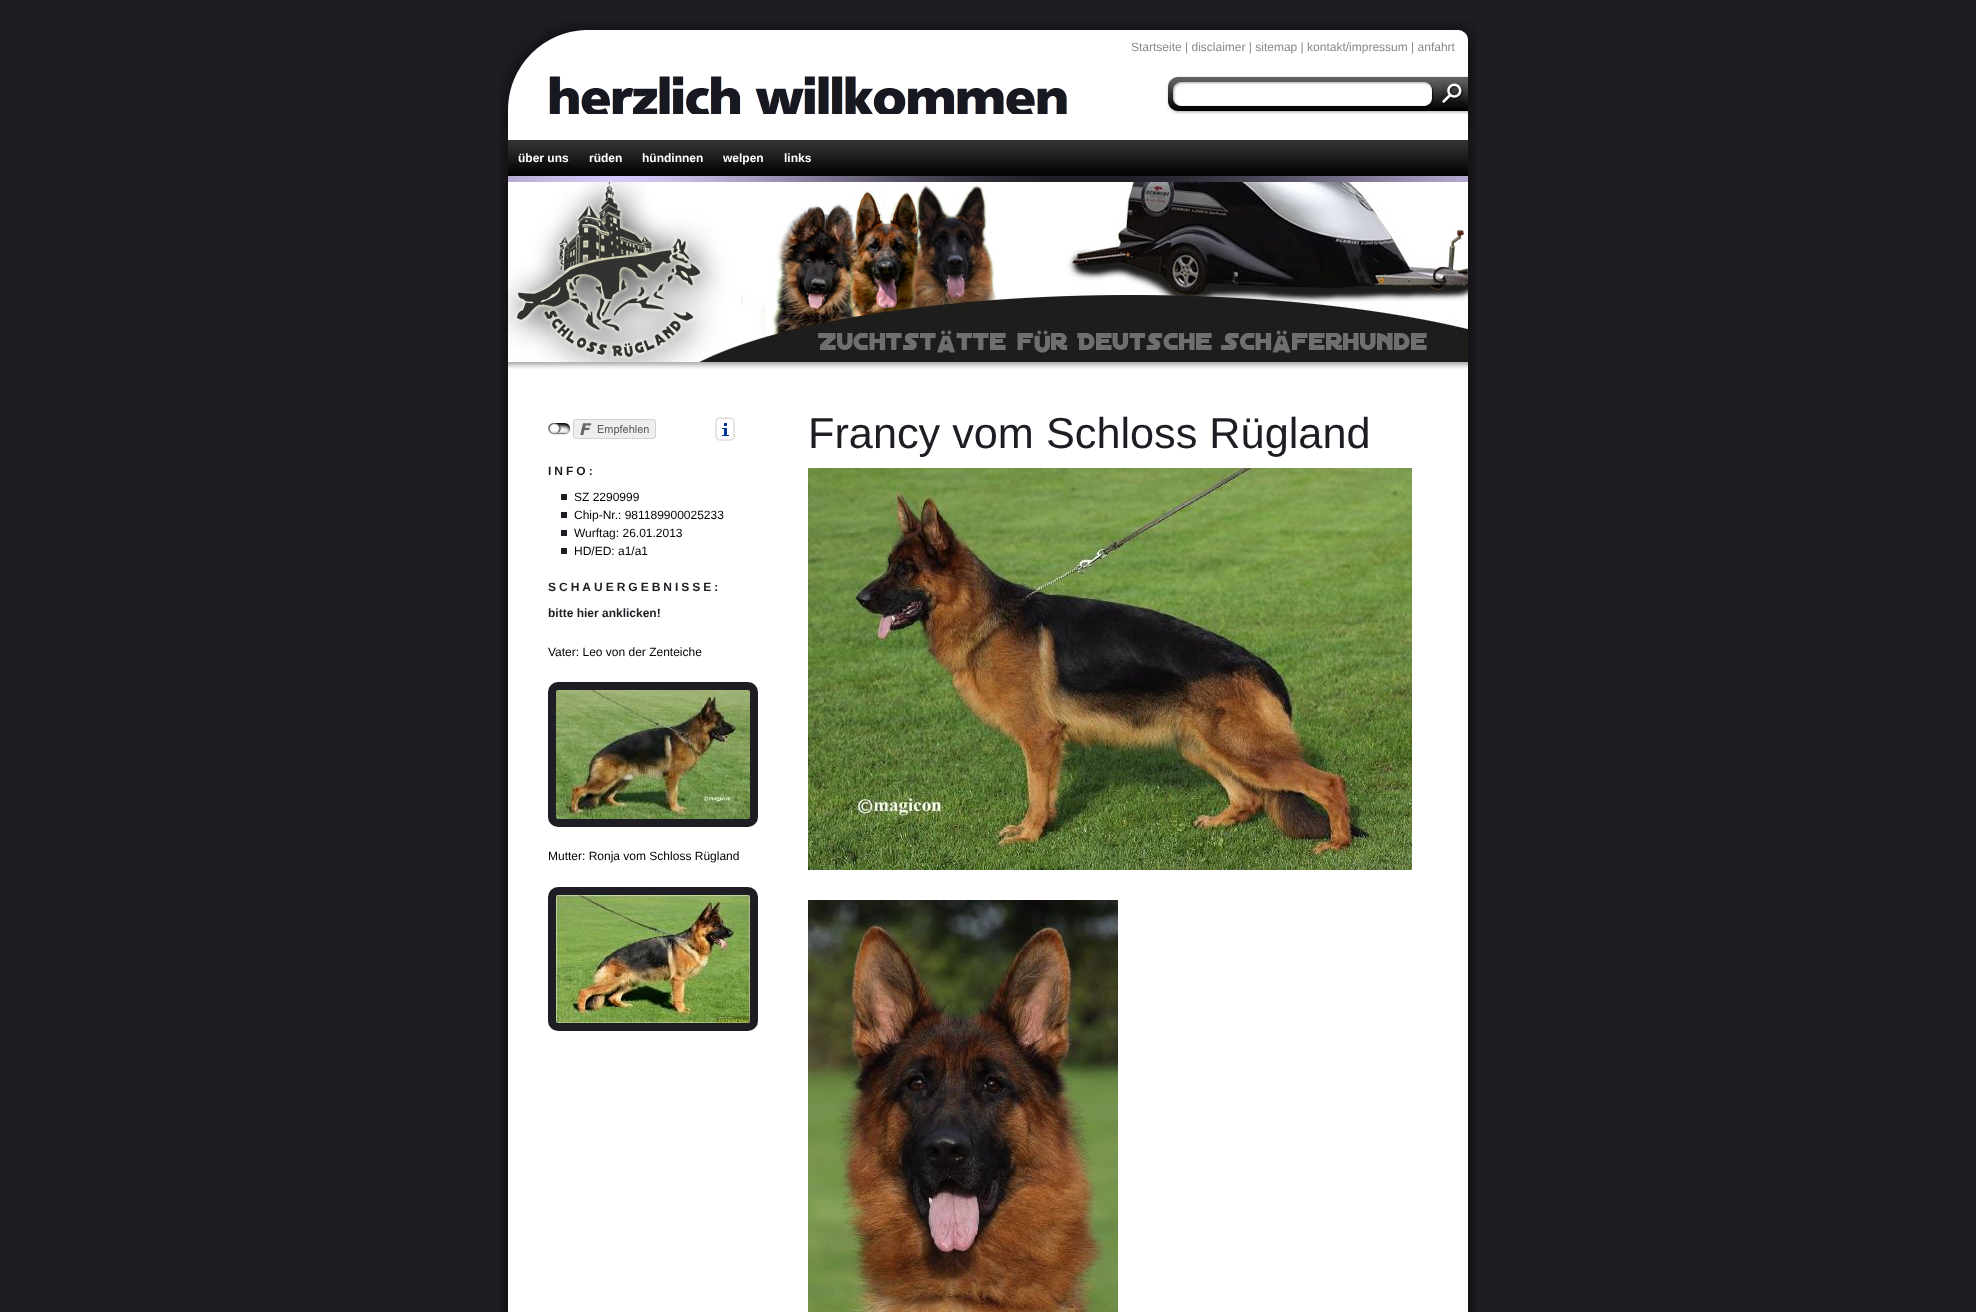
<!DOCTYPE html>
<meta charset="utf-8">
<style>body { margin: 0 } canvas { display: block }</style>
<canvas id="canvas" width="1976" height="1312"></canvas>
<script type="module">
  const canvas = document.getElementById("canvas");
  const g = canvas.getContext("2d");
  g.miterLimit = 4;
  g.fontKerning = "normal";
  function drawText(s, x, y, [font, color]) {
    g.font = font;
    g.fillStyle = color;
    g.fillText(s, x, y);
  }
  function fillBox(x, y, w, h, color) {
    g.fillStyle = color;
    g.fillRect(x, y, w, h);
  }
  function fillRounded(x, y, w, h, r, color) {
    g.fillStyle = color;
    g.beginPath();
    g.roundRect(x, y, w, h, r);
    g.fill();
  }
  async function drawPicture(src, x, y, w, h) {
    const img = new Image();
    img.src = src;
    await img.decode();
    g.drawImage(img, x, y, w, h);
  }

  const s1 = ["12px Liberation Sans", "#888888"];
  const s2 = ["bold 12px Liberation Sans", "#FFFFFF"];
  const s3 = ["43.25px Liberation Sans", "#1F1D24"];
  const s4 = ["bold 12px Liberation Sans", "#1F1D24"];
  const s5 = ["12px Liberation Sans", "#000000"];

  fillBox(0, 0, 1976, 1312, "#1F1D24");
  await drawPicture("pic1.png", 499, 21, 978, 119);
  drawText("Startseite | disclaimer | sitemap | kontakt/impressum | anfahrt", 1131, 51, s1);
  await drawPicture("pic2.png", 549, 76, 518, 38);
  await drawPicture("pic3.png", 1166, 75, 302, 40);
  await drawPicture("pic4.png", 1442, 83, 22, 21);
  await drawPicture("pic5.png", 499, 140, 978, 1172);
  await drawPicture("pic6.png", 508, 140, 960, 36);
  drawText("über uns", 518, 162, s2);
  drawText("rüden", 589, 162, s2);
  drawText("hündinnen", 642, 162, s2);
  drawText("welpen", 723, 162, s2);
  drawText("links", 784, 162, s2);
  await drawPicture("pic7.png", 508, 176, 960, 6);
  await drawPicture("pic8.png", 508, 182, 960, 180);
  await drawPicture("pic9.png", 508, 362, 960, 7);
  drawText("Francy vom Schloss Rügland", 808, 448, s3);
  await drawPicture("pic10.png", 808, 468, 604, 402);
  await drawPicture("pic11.png", 808, 900, 310, 412);
  await drawPicture("pic12.png", 548, 423, 23, 12);
  await drawPicture("pic13.png", 573, 419, 83, 20);
  await drawPicture("pic14.png", 722, 423, 7, 13);
  g.beginPath();
  g.roundRect(716, 418, 18, 22, 4);
  g.strokeStyle = "#E7E3E3";
  g.lineWidth = 2;
  g.stroke();
  g.letterSpacing = "3px";
  drawText("INFO:", 548, 475, s4);
  fillBox(561, 494, 6, 6, "#1F1D24");
  g.letterSpacing = "0px";
  drawText("SZ 2290999", 574, 501, s5);
  fillBox(561, 512, 6, 6, "#1F1D24");
  drawText("Chip-Nr.: 981189900025233", 574, 519, s5);
  fillBox(561, 530, 6, 6, "#1F1D24");
  drawText("Wurftag: 26.01.2013", 574, 537, s5);
  fillBox(561, 548, 6, 6, "#1F1D24");
  drawText("HD/ED: a1/a1", 574, 555, s5);
  g.letterSpacing = "3px";
  drawText("SCHAUERGEBNISSE:", 548, 591, s4);
  g.letterSpacing = "0px";
  drawText("bitte hier anklicken!", 548, 617, s4);
  drawText("Vater: Leo von der Zenteiche", 548, 656, s5);
  fillRounded(548, 682, 210, 145, 10, "#1F1D24");
  await drawPicture("pic15.png", 556, 690, 194, 129);
  drawText("Mutter: Ronja vom Schloss Rügland", 548, 860, s5);
  fillRounded(548, 887, 210, 144, 10, "#1F1D24");
  await drawPicture("pic16.png", 556, 895, 194, 128);
</script>
